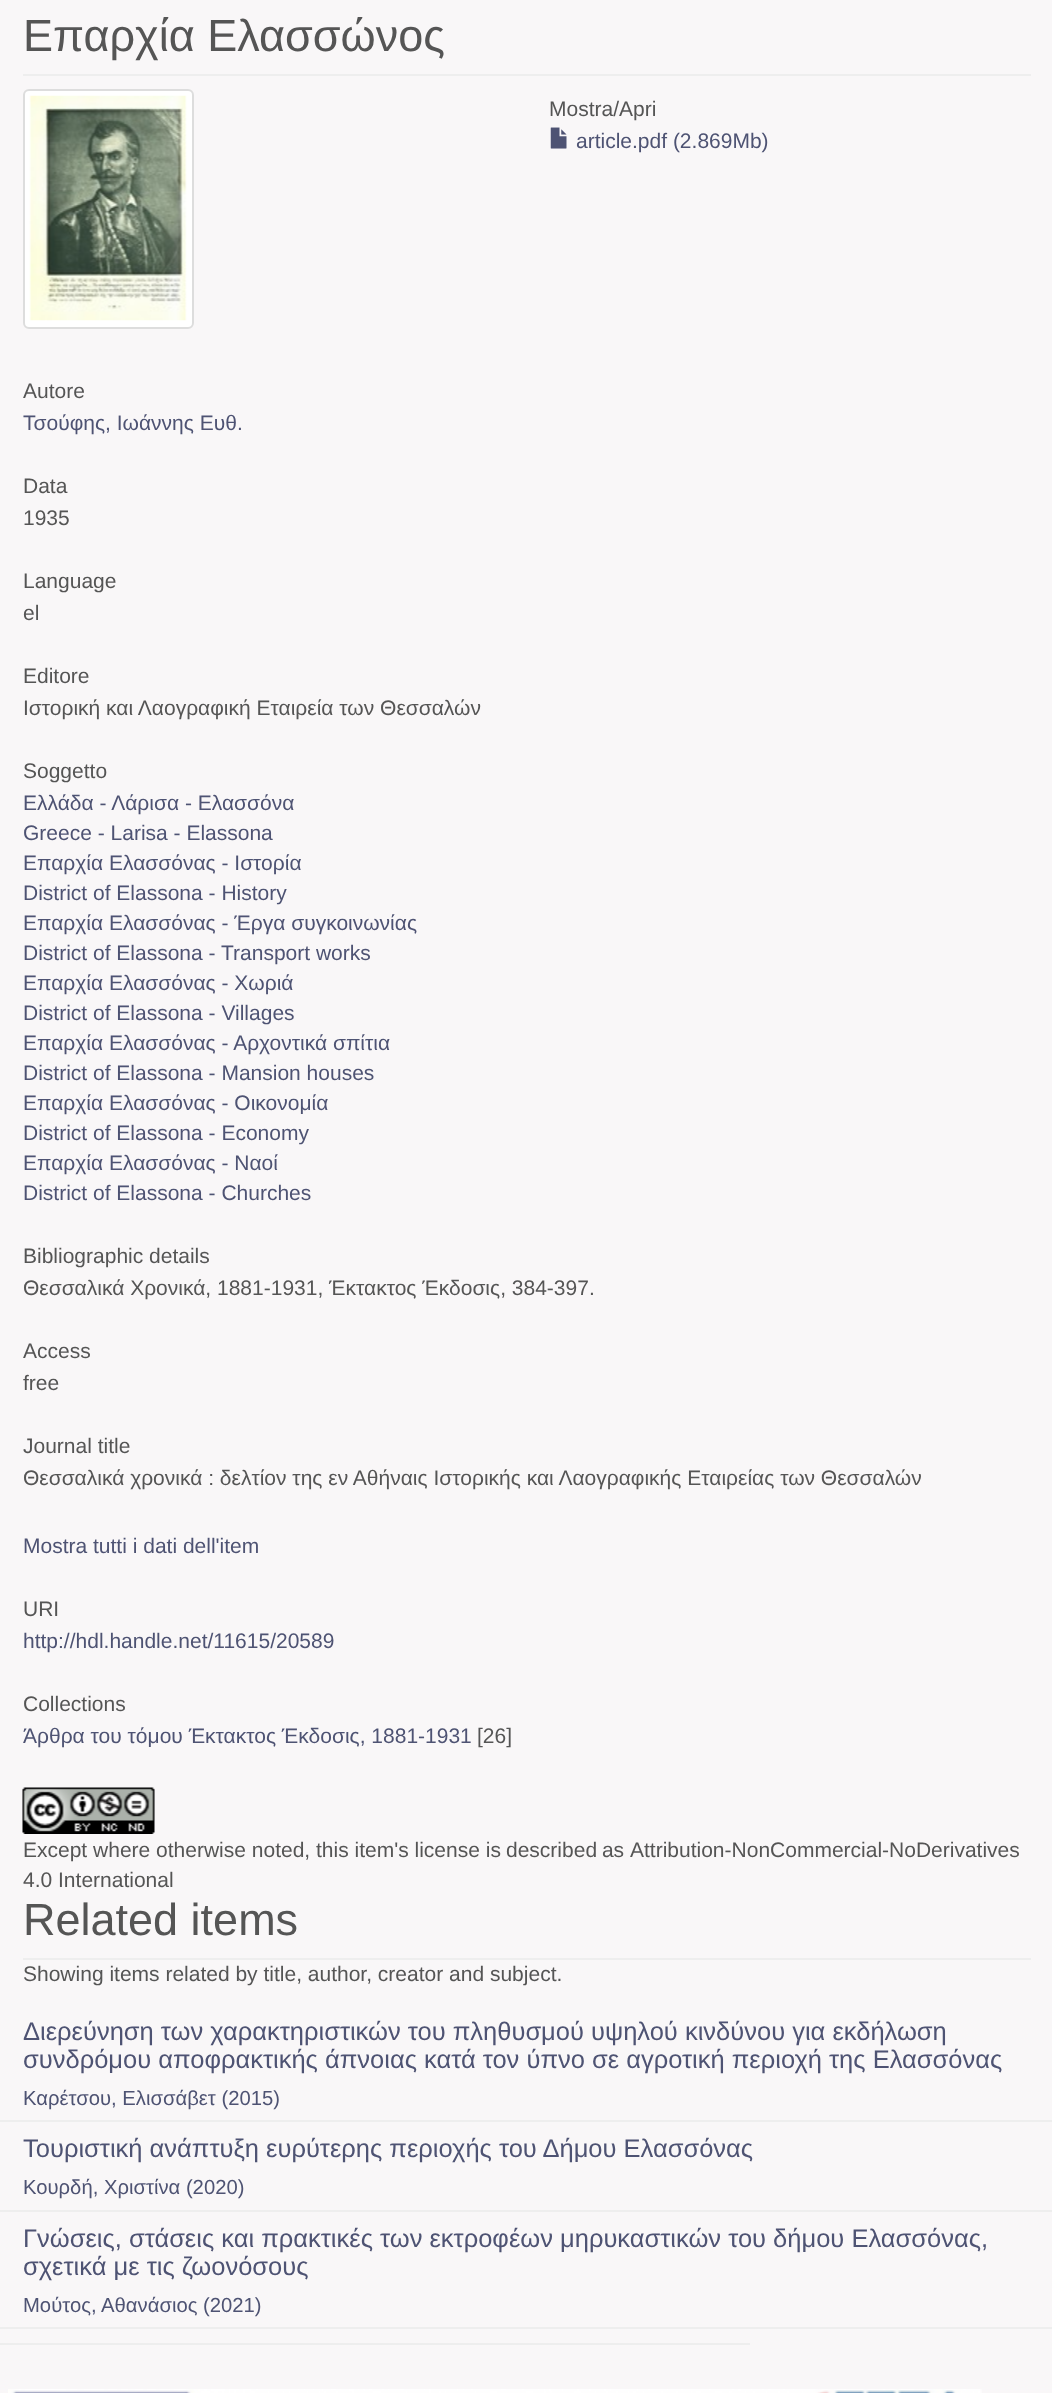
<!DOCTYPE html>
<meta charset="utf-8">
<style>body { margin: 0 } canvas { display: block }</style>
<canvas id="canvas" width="1052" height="2393"></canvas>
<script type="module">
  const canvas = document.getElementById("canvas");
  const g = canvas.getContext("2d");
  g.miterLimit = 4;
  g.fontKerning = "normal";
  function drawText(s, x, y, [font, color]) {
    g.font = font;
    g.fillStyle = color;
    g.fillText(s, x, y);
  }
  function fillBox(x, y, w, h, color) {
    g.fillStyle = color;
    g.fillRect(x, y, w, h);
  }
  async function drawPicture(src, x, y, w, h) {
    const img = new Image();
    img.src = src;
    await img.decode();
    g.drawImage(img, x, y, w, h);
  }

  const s1 = ["45px Liberation Sans", "#555555"];
  const s2 = ["21px Liberation Sans", "#555555"];
  const s3 = ["21px Liberation Sans", "#4E5373"];
  const s4 = ["25.5px Liberation Sans", "#4E5373"];
  const s5 = ["20.25px Liberation Sans", "#4E5373"];

  fillBox(0, 0, 1052, 2393, "#F9F7F8");
  fillBox(23, 74, 1008, 2, "#EEEEEE");
  drawText("Επαρχία Ελασσώνος", 23, 51, s1);
  g.fillStyle = "#FFFFFF";
  g.beginPath();
  g.roundRect(24, 90, 169, 238, 5);
  g.fill();
  g.strokeStyle = "#DDDDDD";
  g.lineWidth = 2;
  g.stroke();
  await drawPicture("pic1.png", 29, 95, 158, 226);
  drawText("Mostra/Apri", 549, 116, s2);
  await drawPicture("pic2.png", 550, 127, 17, 22);
  drawText("article.pdf (2.869Mb)", 576, 148, s3);
  drawText("Autore", 23, 398, s2);
  drawText("Τσούφης, Ιωάννης Ευθ.", 23, 430, s3);
  drawText("Data", 23, 493, s2);
  drawText("1935", 23, 525, s2);
  drawText("Language", 23, 588, s2);
  drawText("el", 23, 620, s2);
  drawText("Editore", 23, 683, s2);
  drawText("Ιστορική και Λαογραφική Εταιρεία των Θεσσαλών", 23, 715, s2);
  drawText("Soggetto", 23, 778, s2);
  drawText("Ελλάδα - Λάρισα - Ελασσόνα", 23, 810, s3);
  drawText("Greece - Larisa - Elassona", 23, 840, s3);
  drawText("Επαρχία Ελασσόνας - Ιστορία", 23, 870, s3);
  drawText("District of Elassona - History", 23, 900, s3);
  drawText("Επαρχία Ελασσόνας - Έργα συγκοινωνίας", 23, 930, s3);
  drawText("District of Elassona - Transport works", 23, 960, s3);
  drawText("Επαρχία Ελασσόνας - Χωριά", 23, 990, s3);
  drawText("District of Elassona - Villages", 23, 1020, s3);
  drawText("Επαρχία Ελασσόνας - Αρχοντικά σπίτια", 23, 1050, s3);
  drawText("District of Elassona - Mansion houses", 23, 1080, s3);
  drawText("Επαρχία Ελασσόνας - Οικονομία", 23, 1110, s3);
  drawText("District of Elassona - Economy", 23, 1140, s3);
  drawText("Επαρχία Ελασσόνας - Ναοί", 23, 1170, s3);
  drawText("District of Elassona - Churches", 23, 1200, s3);
  drawText("Bibliographic details", 23, 1263, s2);
  drawText("Θεσσαλικά Χρονικά, 1881-1931, Έκτακτος Έκδοσις, 384-397.", 23, 1295, s2);
  drawText("Access", 23, 1358, s2);
  drawText("free", 23, 1390, s2);
  drawText("Journal title", 23, 1453, s2);
  drawText("Θεσσαλικά χρονικά : δελτίον της εν Αθήναις Ιστορικής και Λαογραφικής Εταιρείας των Θεσσαλών", 23, 1485, s2);
  drawText("Mostra tutti i dati dell'item", 23, 1553, s3);
  drawText("URI", 23, 1616, s2);
  drawText("http://hdl.handle.net/11615/20589", 23, 1648, s3);
  drawText("Collections", 23, 1711, s2);
  drawText("Άρθρα του τόμου Έκτακτος Έκδοσις, 1881-1931", 23, 1743, s3);
  drawText("[26]", 477, 1743, s2);
  await drawPicture("pic3.png", 22, 1787, 133, 47);
  drawText("Except where otherwise noted, this item's license is", 23, 1857, s2);
  g.wordSpacing = "-1px";
  drawText("described as", 506, 1857, s2);
  g.wordSpacing = "0px";
  drawText("Attribution-NonCommercial-NoDerivatives", 630, 1857, s2);
  drawText("4.0 International", 23, 1887, s2);
  fillBox(23, 1958, 1008, 2, "#EEEEEE");
  drawText("Related items", 23, 1935, s1);
  drawText("Showing items related by title, author, creator and subject.", 23, 1981, s2);
  fillBox(0, 2120, 1052, 2, "#EEEEEE");
  drawText("Διερεύνηση των χαρακτηριστικών του πληθυσμού υψηλού κινδύνου για εκδήλωση", 23, 2040, s4);
  drawText("συνδρόμου αποφρακτικής άπνοιας κατά τον ύπνο σε αγροτική περιοχή της Ελασσόνας", 23, 2068, s4);
  drawText("Καρέτσου, Ελισσάβετ (2015)", 23, 2105, s5);
  fillBox(0, 2210, 1052, 2, "#EEEEEE");
  drawText("Τουριστική ανάπτυξη ευρύτερης περιοχής του Δήμου Ελασσόνας", 23, 2157, s4);
  drawText("Κουρδή, Χριστίνα (2020)", 23, 2194, s5);
  fillBox(0, 2327, 1052, 2, "#EEEEEE");
  drawText("Γνώσεις, στάσεις και πρακτικές των εκτροφέων μηρυκαστικών του δήμου Ελασσόνας,", 23, 2247, s4);
  drawText("σχετικά με τις ζωονόσους", 23, 2275, s4);
  drawText("Μούτος, Αθανάσιος (2021)", 23, 2312, s5);
  fillBox(0, 2343, 750, 2, "#EEEEEE");
  await drawPicture("pic4.png", 8, 2389, 974, 4);
</script>
